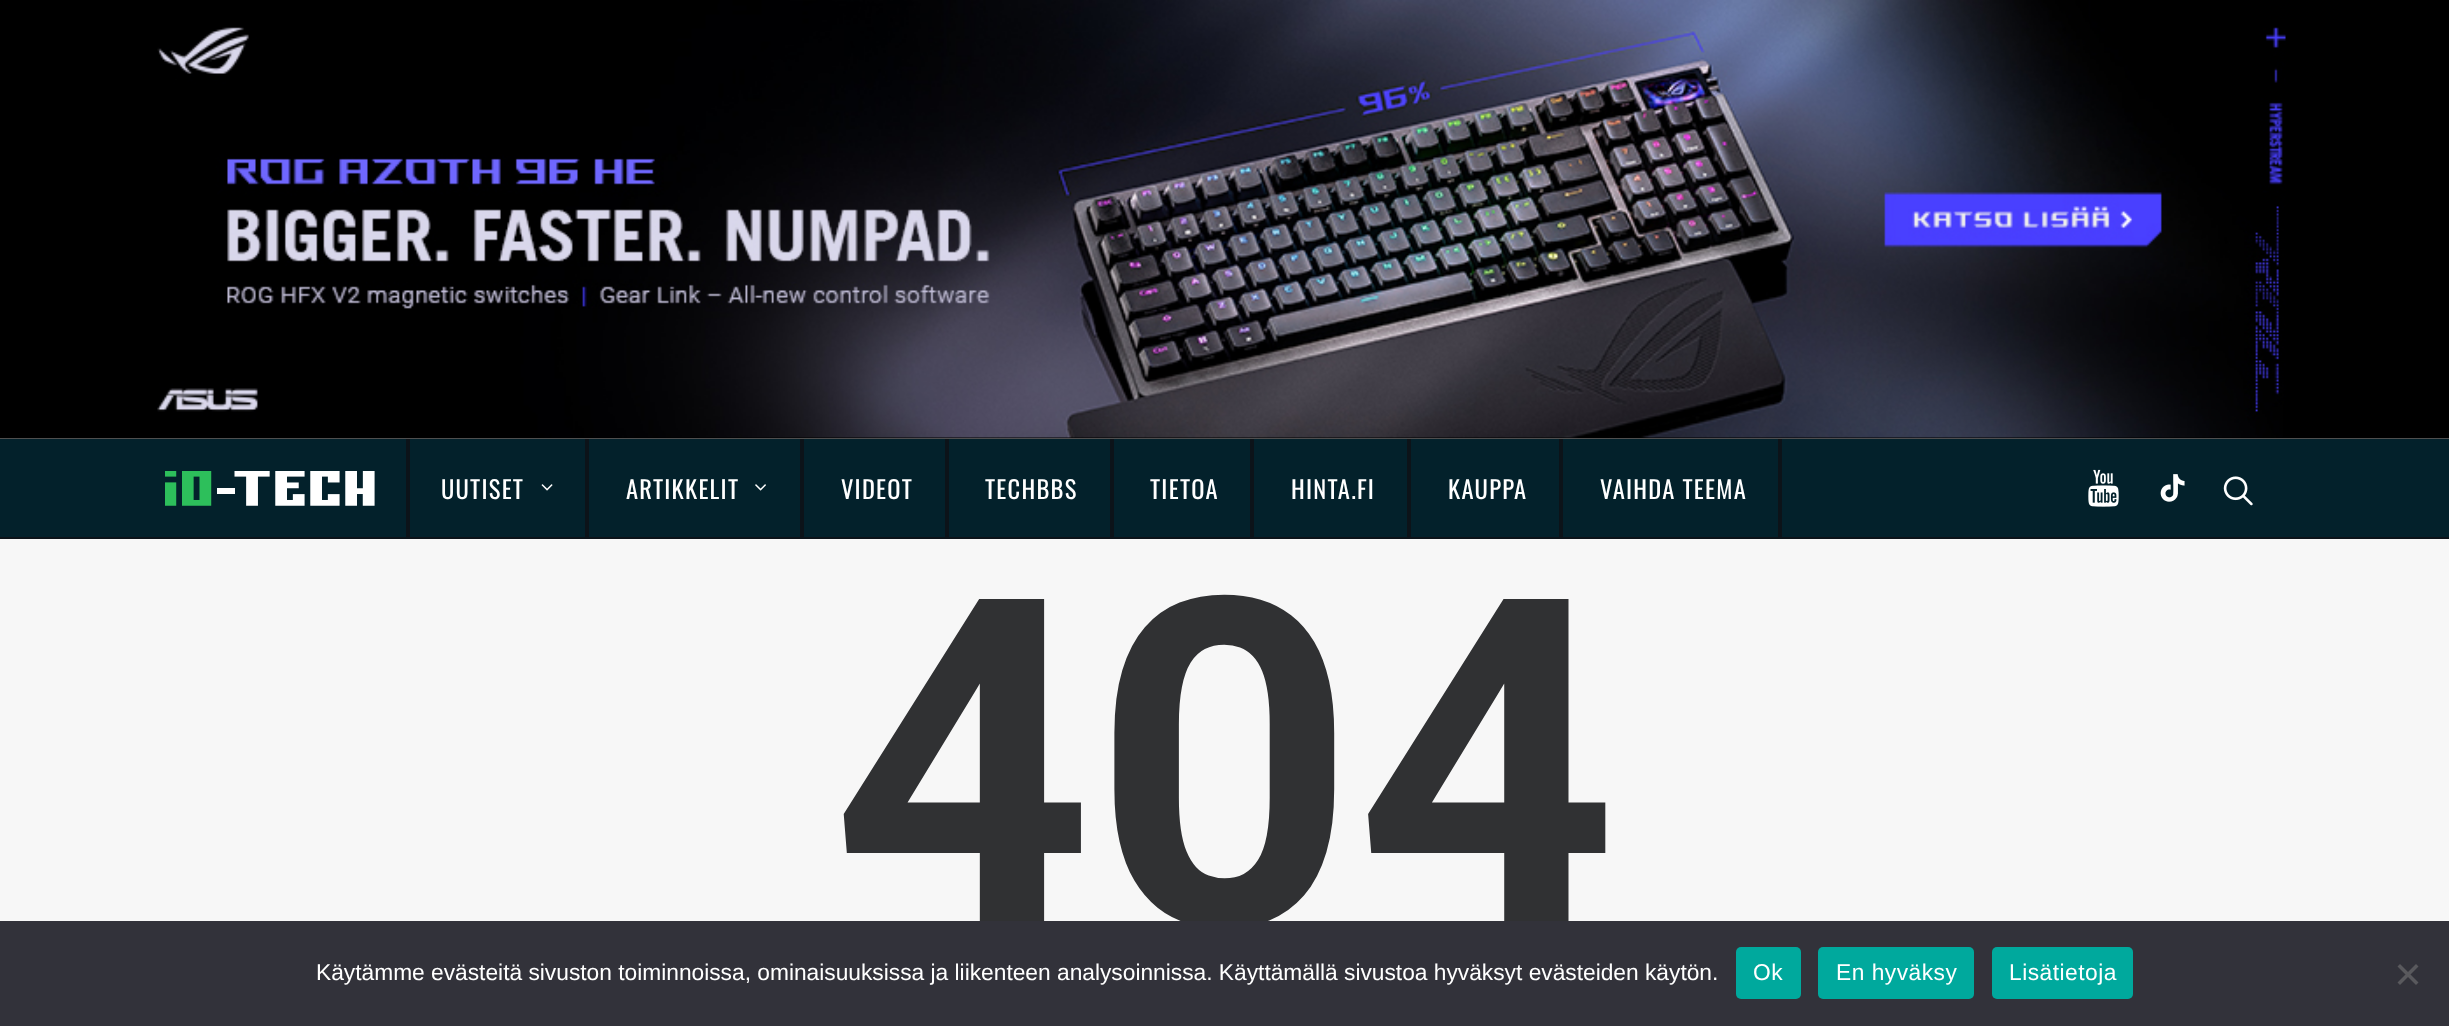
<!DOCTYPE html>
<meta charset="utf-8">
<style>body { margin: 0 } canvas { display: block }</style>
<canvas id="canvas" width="2449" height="1026"></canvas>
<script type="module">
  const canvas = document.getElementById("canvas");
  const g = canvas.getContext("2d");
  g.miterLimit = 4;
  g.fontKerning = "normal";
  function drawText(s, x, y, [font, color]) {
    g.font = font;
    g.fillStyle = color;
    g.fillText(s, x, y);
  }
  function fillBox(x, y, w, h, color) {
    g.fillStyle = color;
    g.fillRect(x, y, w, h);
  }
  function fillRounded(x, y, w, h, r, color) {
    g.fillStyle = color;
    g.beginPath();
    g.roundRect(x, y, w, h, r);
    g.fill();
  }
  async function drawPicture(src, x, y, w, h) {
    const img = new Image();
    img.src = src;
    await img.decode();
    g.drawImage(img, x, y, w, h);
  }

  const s1 = ["24.5px Oswald", "#FFFFFF"];
  const s2 = ["bold 457px Roboto", "#303133"];
  const s3 = ["22.75px Liberation Sans", "#FFFFFF"];

  fillBox(0, 0, 2449, 1026, "#000000");
  fillBox(0, 438, 2449, 1, "#4F4F4F");
  await drawPicture("pic1.png", 157, 0, 2129, 438);
  fillBox(0, 439, 2449, 98, "#03212B");
  fillBox(0, 537, 2449, 2, "#0C1319");
  fillBox(406, 439, 4, 98, "#0C1319");
  await drawPicture("pic2.png", 165, 471, 210, 35);
  fillBox(585, 439, 4, 98, "#0C1319");
  g.letterSpacing = "1.25px";
  drawText("UUTISET", 441, 499, s1);
  await drawPicture("pic3.png", 541, 484, 12, 7);
  fillBox(800, 439, 4, 98, "#0C1319");
  drawText("ARTIKKELIT", 626, 499, s1);
  await drawPicture("pic4.png", 755, 484, 11, 7);
  fillBox(945, 439, 4, 98, "#0C1319");
  drawText("VIDEOT", 841, 499, s1);
  fillBox(1110, 439, 4, 98, "#0C1319");
  drawText("TECHBBS", 985, 499, s1);
  fillBox(1250, 439, 4, 98, "#0C1319");
  drawText("TIETOA", 1150, 499, s1);
  fillBox(1407, 439, 4, 98, "#0C1319");
  drawText("HINTA.FI", 1291, 499, s1);
  fillBox(1559, 439, 4, 98, "#0C1319");
  drawText("KAUPPA", 1448, 499, s1);
  fillBox(1778, 439, 4, 98, "#0C1319");
  drawText("VAIHDA TEEMA", 1600, 499, s1);
  await drawPicture("pic5.png", 2088, 469, 31, 38);
  await drawPicture("pic6.png", 2160, 474, 25, 28);
  await drawPicture("pic7.png", 2223, 476, 30, 30);
  fillBox(0, 539, 2449, 382, "#F7F7F7");
  g.letterSpacing = "0px";
  drawText("404", 831, 924, s2);
  fillBox(0, 921, 2449, 105, "#32323A");
  drawText("Käytämme evästeitä sivuston toiminnoissa, ominaisuuksissa ja liikenteen analysoinnissa. Käyttämällä sivustoa hyväksyt evästeiden käytön.", 316, 980, s3);
  fillRounded(1736, 947, 65, 52, 5, "#00A99D");
  g.letterSpacing = "0.5px";
  drawText("Ok", 1753, 980, s3);
  fillRounded(1818, 947, 156, 52, 5, "#00A99D");
  drawText("En hyväksy", 1836, 980, s3);
  fillRounded(1992, 947, 141, 52, 5, "#00A99D");
  drawText("Lisätietoja", 2009, 980, s3);
  g.fillStyle = "#59595D";
  g.beginPath();
  g.moveTo(2416, 964);
  g.lineTo(2418.5, 966.5);
  g.lineTo(2400, 985);
  g.lineTo(2397.5, 982.5);
  g.closePath();
  g.fill();
  g.beginPath();
  g.moveTo(2397.5, 966.5);
  g.lineTo(2400, 964);
  g.lineTo(2418.5, 982.5);
  g.lineTo(2416, 985);
  g.closePath();
  g.fill();
</script>
